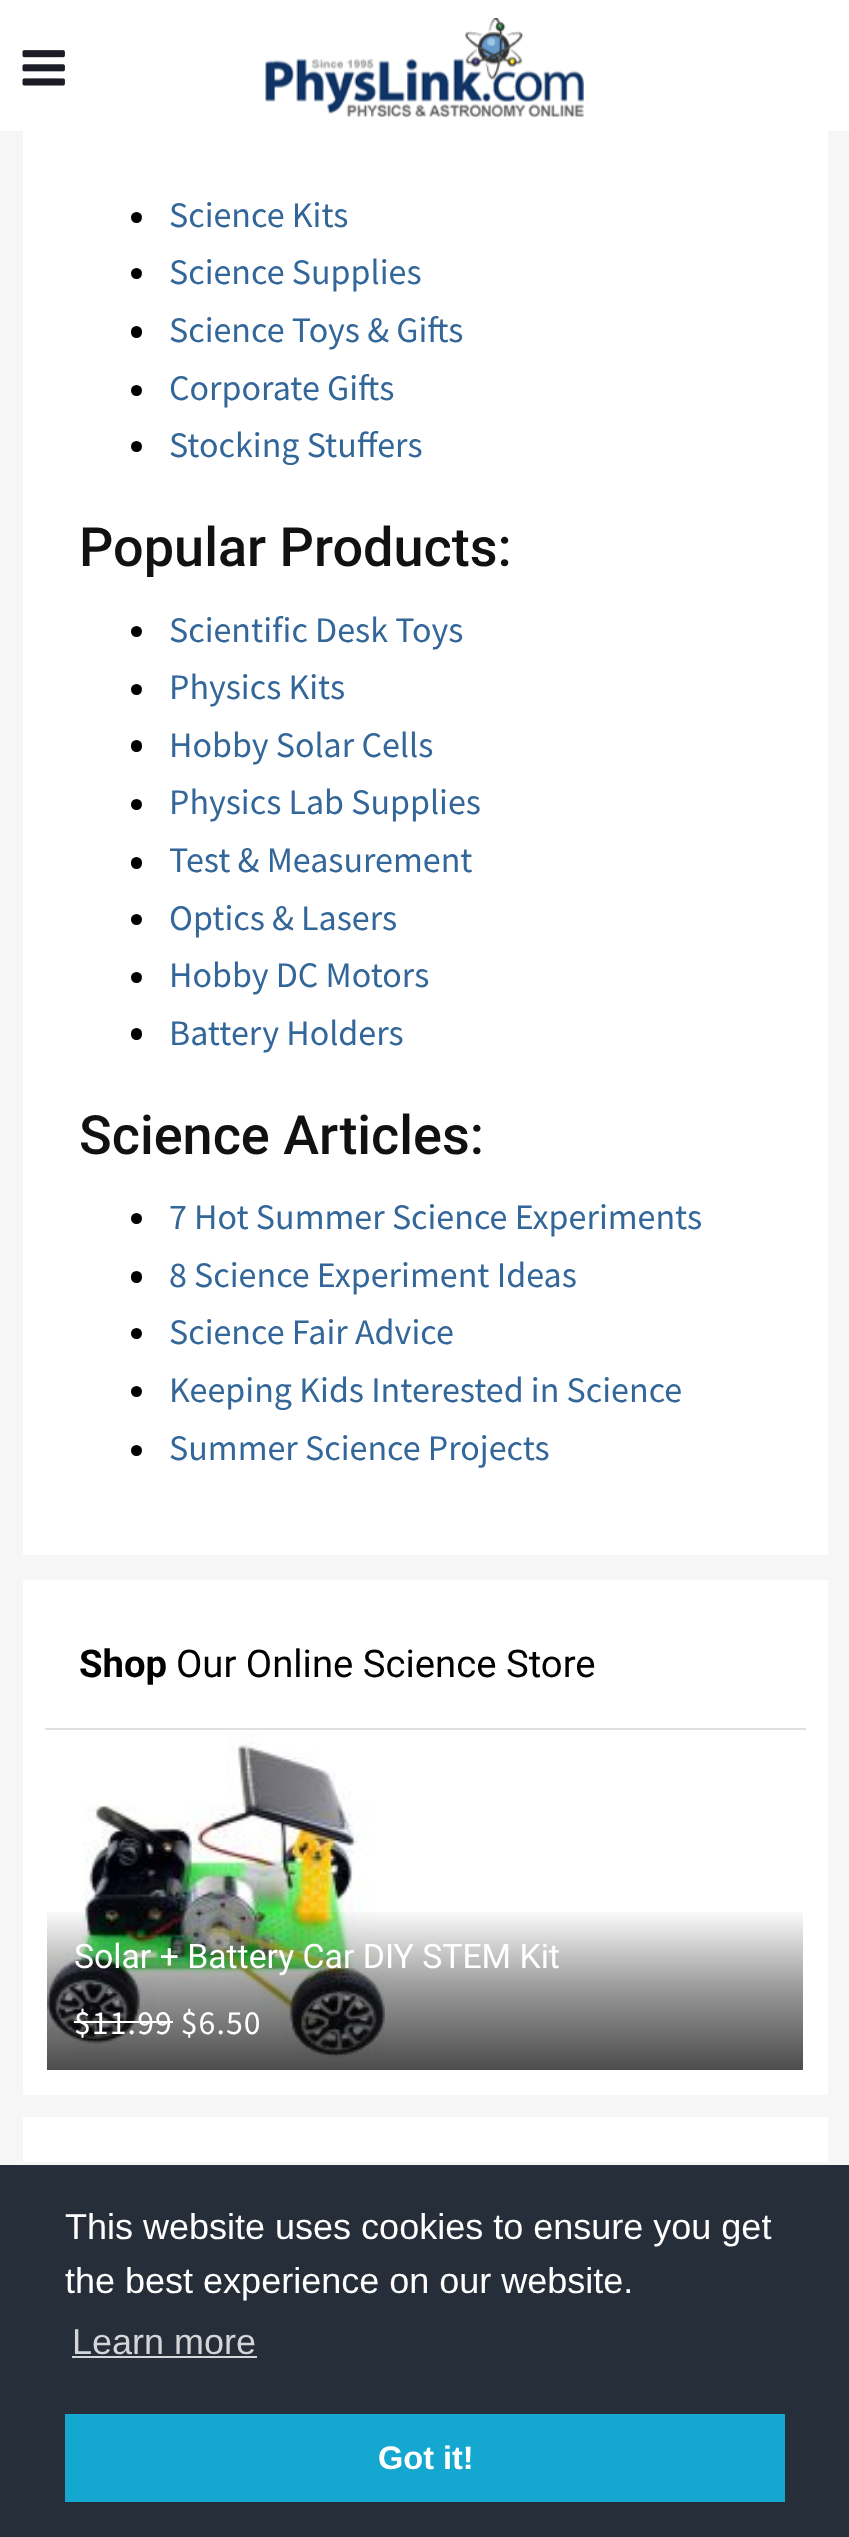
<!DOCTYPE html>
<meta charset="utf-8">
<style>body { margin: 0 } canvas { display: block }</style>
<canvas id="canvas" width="849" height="2537"></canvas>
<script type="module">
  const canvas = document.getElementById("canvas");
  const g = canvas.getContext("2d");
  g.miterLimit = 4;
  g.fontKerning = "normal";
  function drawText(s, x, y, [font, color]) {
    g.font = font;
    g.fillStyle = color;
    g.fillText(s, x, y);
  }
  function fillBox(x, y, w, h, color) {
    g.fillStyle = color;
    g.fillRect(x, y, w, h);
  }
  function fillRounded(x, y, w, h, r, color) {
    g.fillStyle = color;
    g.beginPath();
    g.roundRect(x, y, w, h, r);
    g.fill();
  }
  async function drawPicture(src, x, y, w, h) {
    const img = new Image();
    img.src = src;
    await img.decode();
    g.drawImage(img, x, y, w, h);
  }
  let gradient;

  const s1 = ["36px Source Sans Pro", "#336699"];
  const s2 = ["500 54px Roboto", "#111111"];
  const s3 = ["bold 38.25px Roboto", "#000000"];
  const s4 = ["38.25px Roboto", "#000000"];
  const s5 = ["33.75px Roboto", "#FFFFFF"];
  const s6 = ["33.75px Source Sans Pro", "#FFFFFF"];
  const s7 = ["36px Liberation Sans", "#FFFFFF"];
  const s8 = ["36px Liberation Sans", "#D3D5D7"];
  const s9 = ["bold 32.5px Liberation Sans", "#FFFFFF"];

  fillBox(0, 0, 849, 2537, "#F6F6F6");
  fillBox(0, 0, 849, 131, "#FFFFFF");
  await drawPicture("pic1.png", 22, 50, 43, 36);
  await drawPicture("pic2.png", 265, 18, 319, 99);
  fillBox(23, 131, 805, 1424, "#FFFFFF");
  g.fillStyle = "#000000";
  g.beginPath();
  g.arc(136.5, 217.5, 5.5, 0, Math.PI * 2);
  g.fill();
  drawText("Science Kits", 169, 227, s1);
  g.fillStyle = "#000000";
  g.beginPath();
  g.arc(136.5, 273.5, 5.5, 0, Math.PI * 2);
  g.fill();
  drawText("Science Supplies", 169, 284, s1);
  fillRounded(131, 326, 11, 12, 5.5, "#000000");
  drawText("Science Toys & Gifts", 169, 342, s1);
  g.fillStyle = "#000000";
  g.beginPath();
  g.arc(136.5, 390.5, 5.5, 0, Math.PI * 2);
  g.fill();
  drawText("Corporate Gifts", 169, 400, s1);
  g.fillStyle = "#000000";
  g.beginPath();
  g.arc(136.5, 446.5, 5.5, 0, Math.PI * 2);
  g.fill();
  drawText("Stocking Stuffers", 169, 457, s1);
  drawText("Popular Products:", 79, 566, s2);
  g.fillStyle = "#000000";
  g.beginPath();
  g.arc(136.5, 631.5, 5.5, 0, Math.PI * 2);
  g.fill();
  drawText("Scientific Desk Toys", 169, 642, s1);
  g.fillStyle = "#000000";
  g.beginPath();
  g.arc(136.5, 689.5, 5.5, 0, Math.PI * 2);
  g.fill();
  drawText("Physics Kits", 169, 699, s1);
  fillRounded(131, 740, 11, 12, 5.5, "#000000");
  drawText("Hobby Solar Cells", 169, 757, s1);
  g.fillStyle = "#000000";
  g.beginPath();
  g.arc(136.5, 804.5, 5.5, 0, Math.PI * 2);
  g.fill();
  drawText("Physics Lab Supplies", 169, 814, s1);
  fillRounded(131, 857, 11, 12, 5.5, "#000000");
  drawText("Test & Measurement", 169, 872, s1);
  g.fillStyle = "#000000";
  g.beginPath();
  g.arc(136.5, 919.5, 5.5, 0, Math.PI * 2);
  g.fill();
  drawText("Optics & Lasers", 169, 930, s1);
  g.fillStyle = "#000000";
  g.beginPath();
  g.arc(136.5, 977.5, 5.5, 0, Math.PI * 2);
  g.fill();
  drawText("Hobby DC Motors", 169, 987, s1);
  fillRounded(131, 1028, 11, 12, 5.5, "#000000");
  drawText("Battery Holders", 169, 1045, s1);
  drawText("Science Articles:", 79, 1154, s2);
  g.fillStyle = "#000000";
  g.beginPath();
  g.arc(136.5, 1218.5, 5.5, 0, Math.PI * 2);
  g.fill();
  drawText("7 Hot Summer Science Experiments", 169, 1229, s1);
  fillRounded(131, 1271, 11, 12, 5.5, "#000000");
  drawText("8 Science Experiment Ideas", 169, 1287, s1);
  g.fillStyle = "#000000";
  g.beginPath();
  g.arc(136.5, 1333.5, 5.5, 0, Math.PI * 2);
  g.fill();
  drawText("Science Fair Advice", 169, 1344, s1);
  g.fillStyle = "#000000";
  g.beginPath();
  g.arc(136.5, 1391.5, 5.5, 0, Math.PI * 2);
  g.fill();
  drawText("Keeping Kids Interested in Science", 169, 1402, s1);
  g.fillStyle = "#000000";
  g.beginPath();
  g.arc(136.5, 1450.5, 5.5, 0, Math.PI * 2);
  g.fill();
  drawText("Summer Science Projects", 169, 1460, s1);
  fillBox(23, 1580, 805, 515, "#FFFFFF");
  fillBox(45, 1728, 761, 2, "#E0E0E0");
  drawText("Shop", 79, 1677, s3);
  drawText("Our Online Science Store", 176, 1677, s4);
  await drawPicture("pic3.png", 47, 1733, 338, 324);
  gradient = g.createLinearGradient(425, 1908, 425, 2070);
  gradient.addColorStop(0, "rgba(0, 0, 0, 0)");
  gradient.addColorStop(0.5, "rgba(0, 0, 0, 0.4)");
  gradient.addColorStop(1, "rgba(0, 0, 0, 0.7)");
  g.fillStyle = gradient;
  g.fillRect(47, 1912, 756, 158);
  drawText("Solar + Battery Car DIY STEM Kit", 74, 1968, s5);
  g.letterSpacing = "1.1px";
  drawText("$11.99 $6.50", 74, 2034, s6);
  fillBox(74, 2021, 99, 2, "#FFFFFF");
  fillBox(23, 2117, 805, 45, "#FFFFFF");
  fillBox(0, 2165, 849, 372, "#252E39");
  g.letterSpacing = "0px";
  drawText("This website uses cookies to ensure you get", 65, 2239, s7);
  drawText("the best experience on our website.", 65, 2293, s7);
  drawText("Learn more", 72, 2354, s8);
  fillBox(72, 2356, 185, 2, "#D3D5D7");
  fillBox(65, 2414, 720, 88, "#14A7D0");
  drawText("Got it!", 378, 2469, s9);
</script>
